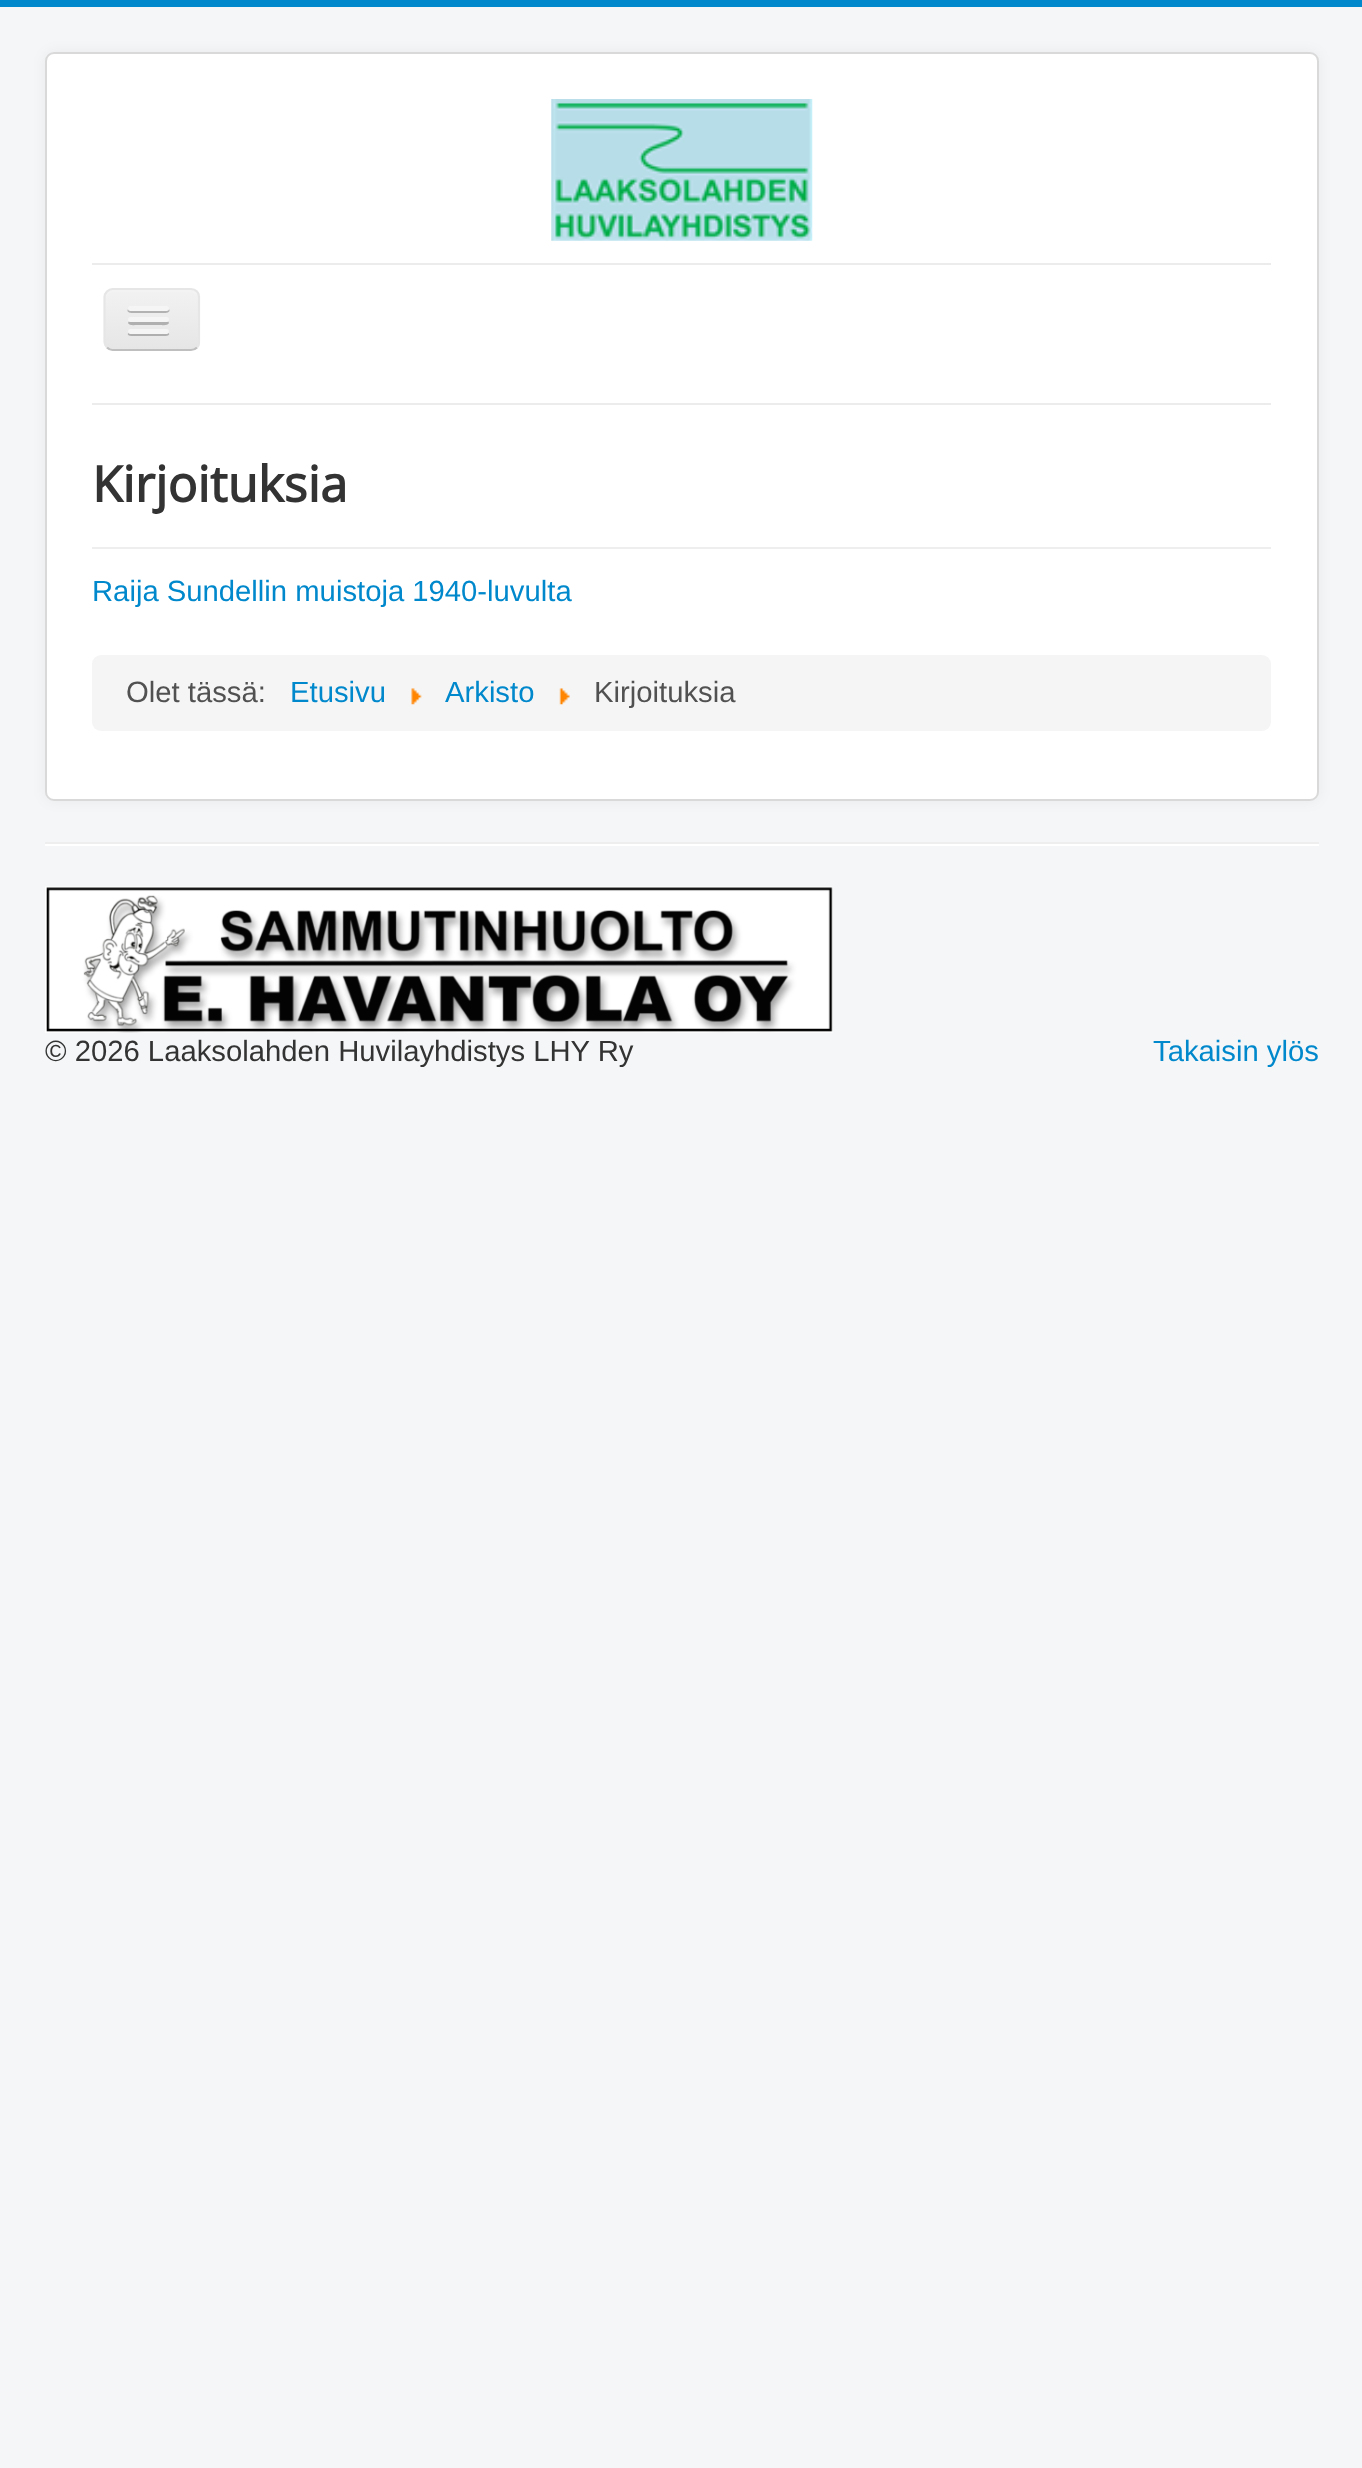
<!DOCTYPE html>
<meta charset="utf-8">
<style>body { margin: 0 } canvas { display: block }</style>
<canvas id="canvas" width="1362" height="2468"></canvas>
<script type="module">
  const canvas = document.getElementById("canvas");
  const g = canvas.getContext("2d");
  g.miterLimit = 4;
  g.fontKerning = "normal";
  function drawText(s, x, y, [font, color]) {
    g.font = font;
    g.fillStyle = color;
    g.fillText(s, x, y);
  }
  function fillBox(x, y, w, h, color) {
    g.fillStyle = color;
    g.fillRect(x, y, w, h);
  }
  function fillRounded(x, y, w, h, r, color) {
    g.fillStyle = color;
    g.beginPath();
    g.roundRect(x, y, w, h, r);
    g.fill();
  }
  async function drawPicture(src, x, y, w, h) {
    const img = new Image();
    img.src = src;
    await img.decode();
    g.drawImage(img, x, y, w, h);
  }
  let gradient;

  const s1 = ["bold 49.5px Open Sans", "#333333"];
  const s2 = ["29.25px Liberation Sans", "#0088CC"];
  const s3 = ["29.25px Liberation Sans", "#515151"];
  const s4 = ["29.25px Liberation Sans", "#333333"];

  fillBox(0, 0, 1362, 2468, "#F4F6F7");
  fillBox(0, 0, 1362, 7, "#0088CC");
  g.fillStyle = "rgba(0, 0, 0, 0.05)";
  g.filter = "blur(7px)";
  g.beginPath();
  g.roundRect(45, 52, 1274, 749, 9);
  g.fill();
  g.filter = "none";
  fillRounded(45, 52, 1274, 749, 9, "#FFFFFF");
  g.beginPath();
  g.roundRect(46, 53, 1272, 747, 8);
  g.strokeStyle = "rgba(0, 0, 0, 0.15)";
  g.lineWidth = 2;
  g.stroke();
  await drawPicture("pic1.png", 551, 99, 262, 142);
  fillBox(92, 263, 1179, 2, "#ECECEC");
  fillBox(92, 403, 1179, 2, "#ECECEC");
  g.save();
  g.beginPath();
  g.roundRect(104, 288, 96, 63, 9);
  g.clip();
  gradient = g.createLinearGradient(152, 290, 152, 349);
  gradient.addColorStop(0, "#F2F2F2");
  gradient.addColorStop(1, "#E6E6E6");
  g.fillStyle = gradient;
  g.fillRect(104, 290, 96, 59);
  g.restore();
  g.fillStyle = "#F3F3F3";
  g.beginPath();
  g.moveTo(112, 292);
  g.lineTo(191, 292);
  g.bezierCurveTo(195, 292, 198, 296, 198, 299);
  g.bezierCurveTo(198, 287, 187, 290, 178, 290);
  g.lineTo(126, 290);
  g.bezierCurveTo(117, 290, 106, 287, 106, 299);
  g.bezierCurveTo(106, 296, 109, 292, 112, 292);
  g.closePath();
  g.fill();
  g.beginPath();
  g.moveTo(197, 347.5);
  g.bezierCurveTo(195.5, 349, 193.5, 350, 191, 350);
  g.lineTo(112.5, 350);
  g.bezierCurveTo(110.5, 350, 108.5, 349, 107, 347.5);
  g.strokeStyle = "#BFBFBF";
  g.lineWidth = 2.2;
  g.stroke();
  g.beginPath();
  g.moveTo(107, 347.5);
  g.bezierCurveTo(105.5, 346, 104.5, 344, 104.5, 342);
  g.lineTo(104.5, 297);
  g.bezierCurveTo(104.5, 295, 105.5, 293, 107, 291.5);
  g.bezierCurveTo(108.5, 290, 110.5, 289, 112.5, 289);
  g.lineTo(191, 289);
  g.bezierCurveTo(193.5, 289, 195.5, 290, 197, 291.5);
  g.bezierCurveTo(198.5, 293, 199, 295, 199, 297);
  g.lineTo(199, 342);
  g.bezierCurveTo(199, 344, 198.5, 346, 197, 347.5);
  g.strokeStyle = "#E6E6E6";
  g.stroke();
  g.fillStyle = "#B2B2B2";
  g.beginPath();
  g.moveTo(128, 309);
  g.bezierCurveTo(125, 314, 136, 313, 136, 313);
  g.lineTo(160, 313);
  g.bezierCurveTo(161, 313, 172, 314, 169, 309);
  g.bezierCurveTo(168, 310, 167, 310, 166, 310);
  g.lineTo(130, 310);
  g.bezierCurveTo(130, 310, 129, 310, 128, 309);
  g.closePath();
  g.fill();
  fillRounded(128, 306, 41, 5, 2.5, "#F5F5F5");
  g.fillStyle = "#B0B0B0";
  g.beginPath();
  g.moveTo(129, 321);
  g.lineTo(128, 323);
  g.bezierCurveTo(129, 326, 135, 325, 136, 325);
  g.lineTo(160, 325);
  g.bezierCurveTo(162, 325, 168, 326, 169, 323);
  g.lineTo(168, 321);
  g.lineTo(167, 322);
  g.lineTo(130, 322);
  g.closePath();
  g.fill();
  fillRounded(128, 317, 41, 5, 2.5, "#F5F5F5");
  g.fillStyle = "#AFAFAF";
  g.beginPath();
  g.moveTo(129, 332);
  g.bezierCurveTo(124, 337, 136, 336, 136, 336);
  g.lineTo(160, 336);
  g.bezierCurveTo(161, 336, 173, 337, 168, 332);
  g.lineTo(167, 333);
  g.lineTo(130, 333);
  g.closePath();
  g.fill();
  fillRounded(128, 329, 41, 5, 2.5, "#F5F5F5");
  fillBox(92, 547, 1179, 2, "#EEEEEE");
  drawText("Kirjoituksia", 92, 502, s1);
  drawText("Raija Sundellin muistoja 1940-luvulta", 92, 601, s2);
  fillRounded(92, 655, 1179, 76, 9, "#F5F5F5");
  drawText("Olet tässä:", 126, 702, s3);
  drawText("Etusivu", 290, 702, s2);
  await drawPicture("pic2.png", 411, 688, 11, 17);
  drawText("Arkisto", 445, 702, s2);
  await drawPicture("pic3.png", 559, 688, 11, 17);
  drawText("Kirjoituksia", 594, 702, s3);
  fillBox(45, 842, 1274, 2, "#EEEEEE");
  fillBox(45, 844, 1274, 2, "#FFFFFF");
  await drawPicture("pic4.png", 45, 886, 788, 147);
  drawText("© 2026 Laaksolahden Huvilayhdistys LHY Ry", 45, 1061, s4);
  drawText("Takaisin ylös", 1153, 1061, s2);
</script>
